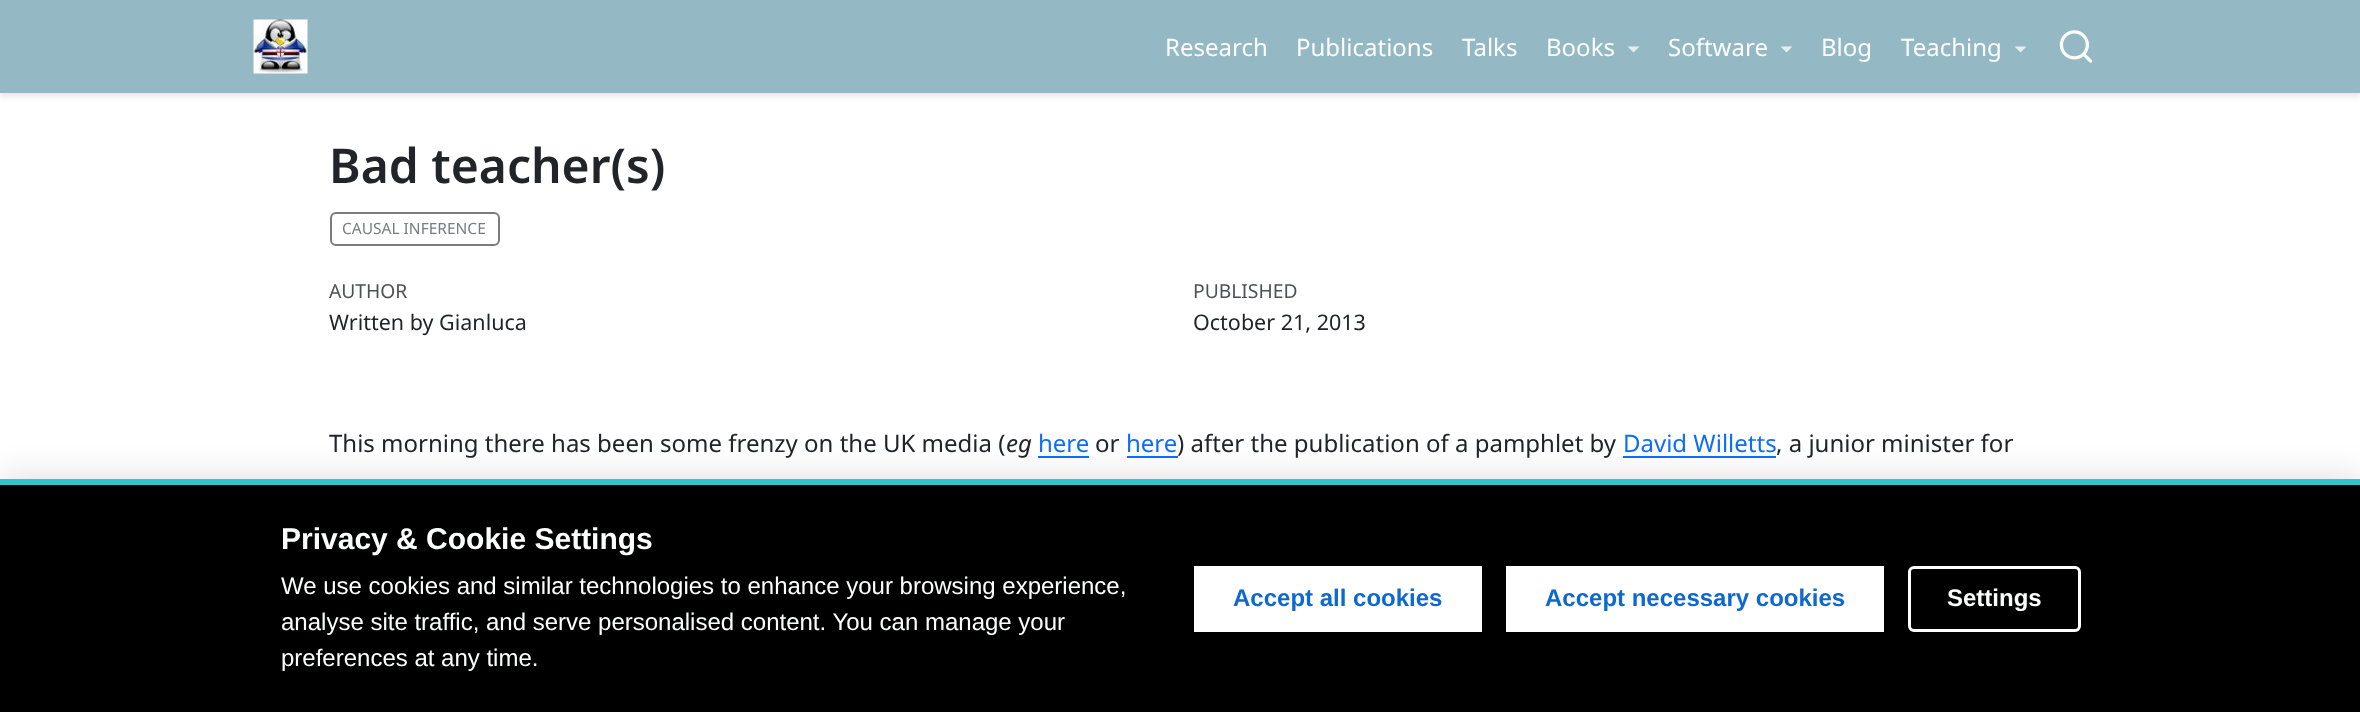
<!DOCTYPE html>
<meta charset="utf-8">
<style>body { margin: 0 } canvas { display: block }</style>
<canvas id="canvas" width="2360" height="712"></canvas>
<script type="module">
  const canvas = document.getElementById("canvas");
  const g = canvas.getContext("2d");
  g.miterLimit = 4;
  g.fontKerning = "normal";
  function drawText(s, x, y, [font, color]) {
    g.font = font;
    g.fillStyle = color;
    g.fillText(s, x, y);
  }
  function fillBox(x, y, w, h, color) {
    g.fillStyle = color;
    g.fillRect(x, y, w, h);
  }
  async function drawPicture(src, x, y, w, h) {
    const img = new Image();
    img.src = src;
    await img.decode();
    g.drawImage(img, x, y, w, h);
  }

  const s1 = ["24px Noto Sans", "#FDFEFE"];
  const s2 = ["600 48px Noto Sans", "#212529"];
  const s3 = ["15.5px Noto Sans", "#7A7C7F"];
  const s4 = ["19.25px Noto Sans", "#4E5154"];
  const s5 = ["21.5px Noto Sans", "#212529"];
  const s6 = ["24px Noto Sans", "#212529"];
  const s7 = ["italic 24px Noto Sans", "#212529"];
  const s8 = ["24px Noto Sans", "#0D6EFD"];
  const s9 = ["bold 30px Liberation Sans", "#FDFEFE"];
  const s10 = ["24px Liberation Sans", "#FDFEFE"];
  const s11 = ["bold 24px Liberation Sans", "#0D68CF"];
  const s12 = ["bold 24px Liberation Sans", "#FDFEFE"];

  fillBox(0, 0, 2360, 712, "#FFFFFF");
  g.fillStyle = "rgba(0, 0, 0, 0.11)";
  g.filter = "blur(3px)";
  g.beginPath();
  g.rect(0, 3, 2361, 93);
  g.fill();
  g.filter = "none";
  fillBox(0, 0, 2360, 93, "#94B9C5");
  await drawPicture("pic1.png", 253, 19, 55, 55);
  drawText("Research", 1165, 56, s1);
  drawText("Publications", 1296, 56, s1);
  drawText("Talks", 1462, 56, s1);
  drawText("Books", 1546, 56, s1);
  g.fillStyle = "#E3EDF0";
  g.beginPath();
  g.moveTo(1627.5, 46.5);
  g.lineTo(1639.5, 46.5);
  g.lineTo(1633.5, 52.5);
  g.closePath();
  g.fill();
  drawText("Software", 1668, 56, s1);
  g.fillStyle = "#E3EDF0";
  g.beginPath();
  g.moveTo(1780.5, 46.5);
  g.lineTo(1792.5, 46.5);
  g.lineTo(1786.5, 52.5);
  g.closePath();
  g.fill();
  drawText("Blog", 1821, 56, s1);
  drawText("Teaching", 1901, 56, s1);
  g.fillStyle = "#E3EDF0";
  g.beginPath();
  g.moveTo(2014.5, 46.5);
  g.lineTo(2026.5, 46.5);
  g.lineTo(2020.5, 52.5);
  g.closePath();
  g.fill();
  await drawPicture("pic2.png", 2059, 30, 34, 33);
  drawText("Bad teacher(s)", 329, 183, s2);
  g.beginPath();
  g.roundRect(331, 213, 168, 32, 5);
  g.strokeStyle = "#7A7C7F";
  g.lineWidth = 2;
  g.stroke();
  drawText("CAUSAL INFERENCE", 342, 234, s3);
  drawText("AUTHOR", 329, 298, s4);
  drawText("Written by Gianluca", 329, 330, s5);
  drawText("PUBLISHED", 1193, 298, s4);
  drawText("October 21, 2013", 1193, 330, s5);
  drawText("This morning there has been some frenzy on the UK media (", 329, 452, s6);
  drawText("eg", 1006, 452, s7);
  drawText("here", 1038, 452, s8);
  fillBox(1038, 456, 51, 2, "#0D6EFD");
  drawText("or", 1095, 452, s6);
  drawText("here", 1126, 452, s8);
  fillBox(1127, 456, 51, 2, "#0D6EFD");
  drawText(") after the publication of a pamphlet by", 1177, 452, s6);
  drawText("David Willetts", 1623, 452, s8);
  fillBox(1623, 456, 153, 2, "#0D6EFD");
  drawText(", a junior minister for", 1776, 452, s6);
  g.fillStyle = "rgba(0, 0, 0, 0.1)";
  g.filter = "blur(15px)";
  g.beginPath();
  g.rect(0, 473, 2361, 234);
  g.fill();
  g.filter = "none";
  fillBox(0, 485, 2360, 227, "#000000");
  fillBox(0, 479, 2360, 6, "#34C6C6");
  drawText("Privacy & Cookie Settings", 281, 549, s9);
  drawText("We use cookies and similar technologies to enhance your browsing experience,", 281, 594, s10);
  drawText("analyse site traffic, and serve personalised content. You can manage your", 281, 630, s10);
  drawText("preferences at any time.", 281, 666, s10);
  fillBox(1194, 566, 288, 66, "#FFFFFF");
  drawText("Accept all cookies", 1233, 606, s11);
  fillBox(1506, 566, 378, 66, "#FFFFFF");
  drawText("Accept necessary cookies", 1545, 606, s11);
  g.beginPath();
  g.roundRect(1909.5, 567.5, 170, 63, 4.5);
  g.strokeStyle = "#FFFFFF";
  g.lineWidth = 3;
  g.stroke();
  drawText("Settings", 1947, 606, s12);
</script>
